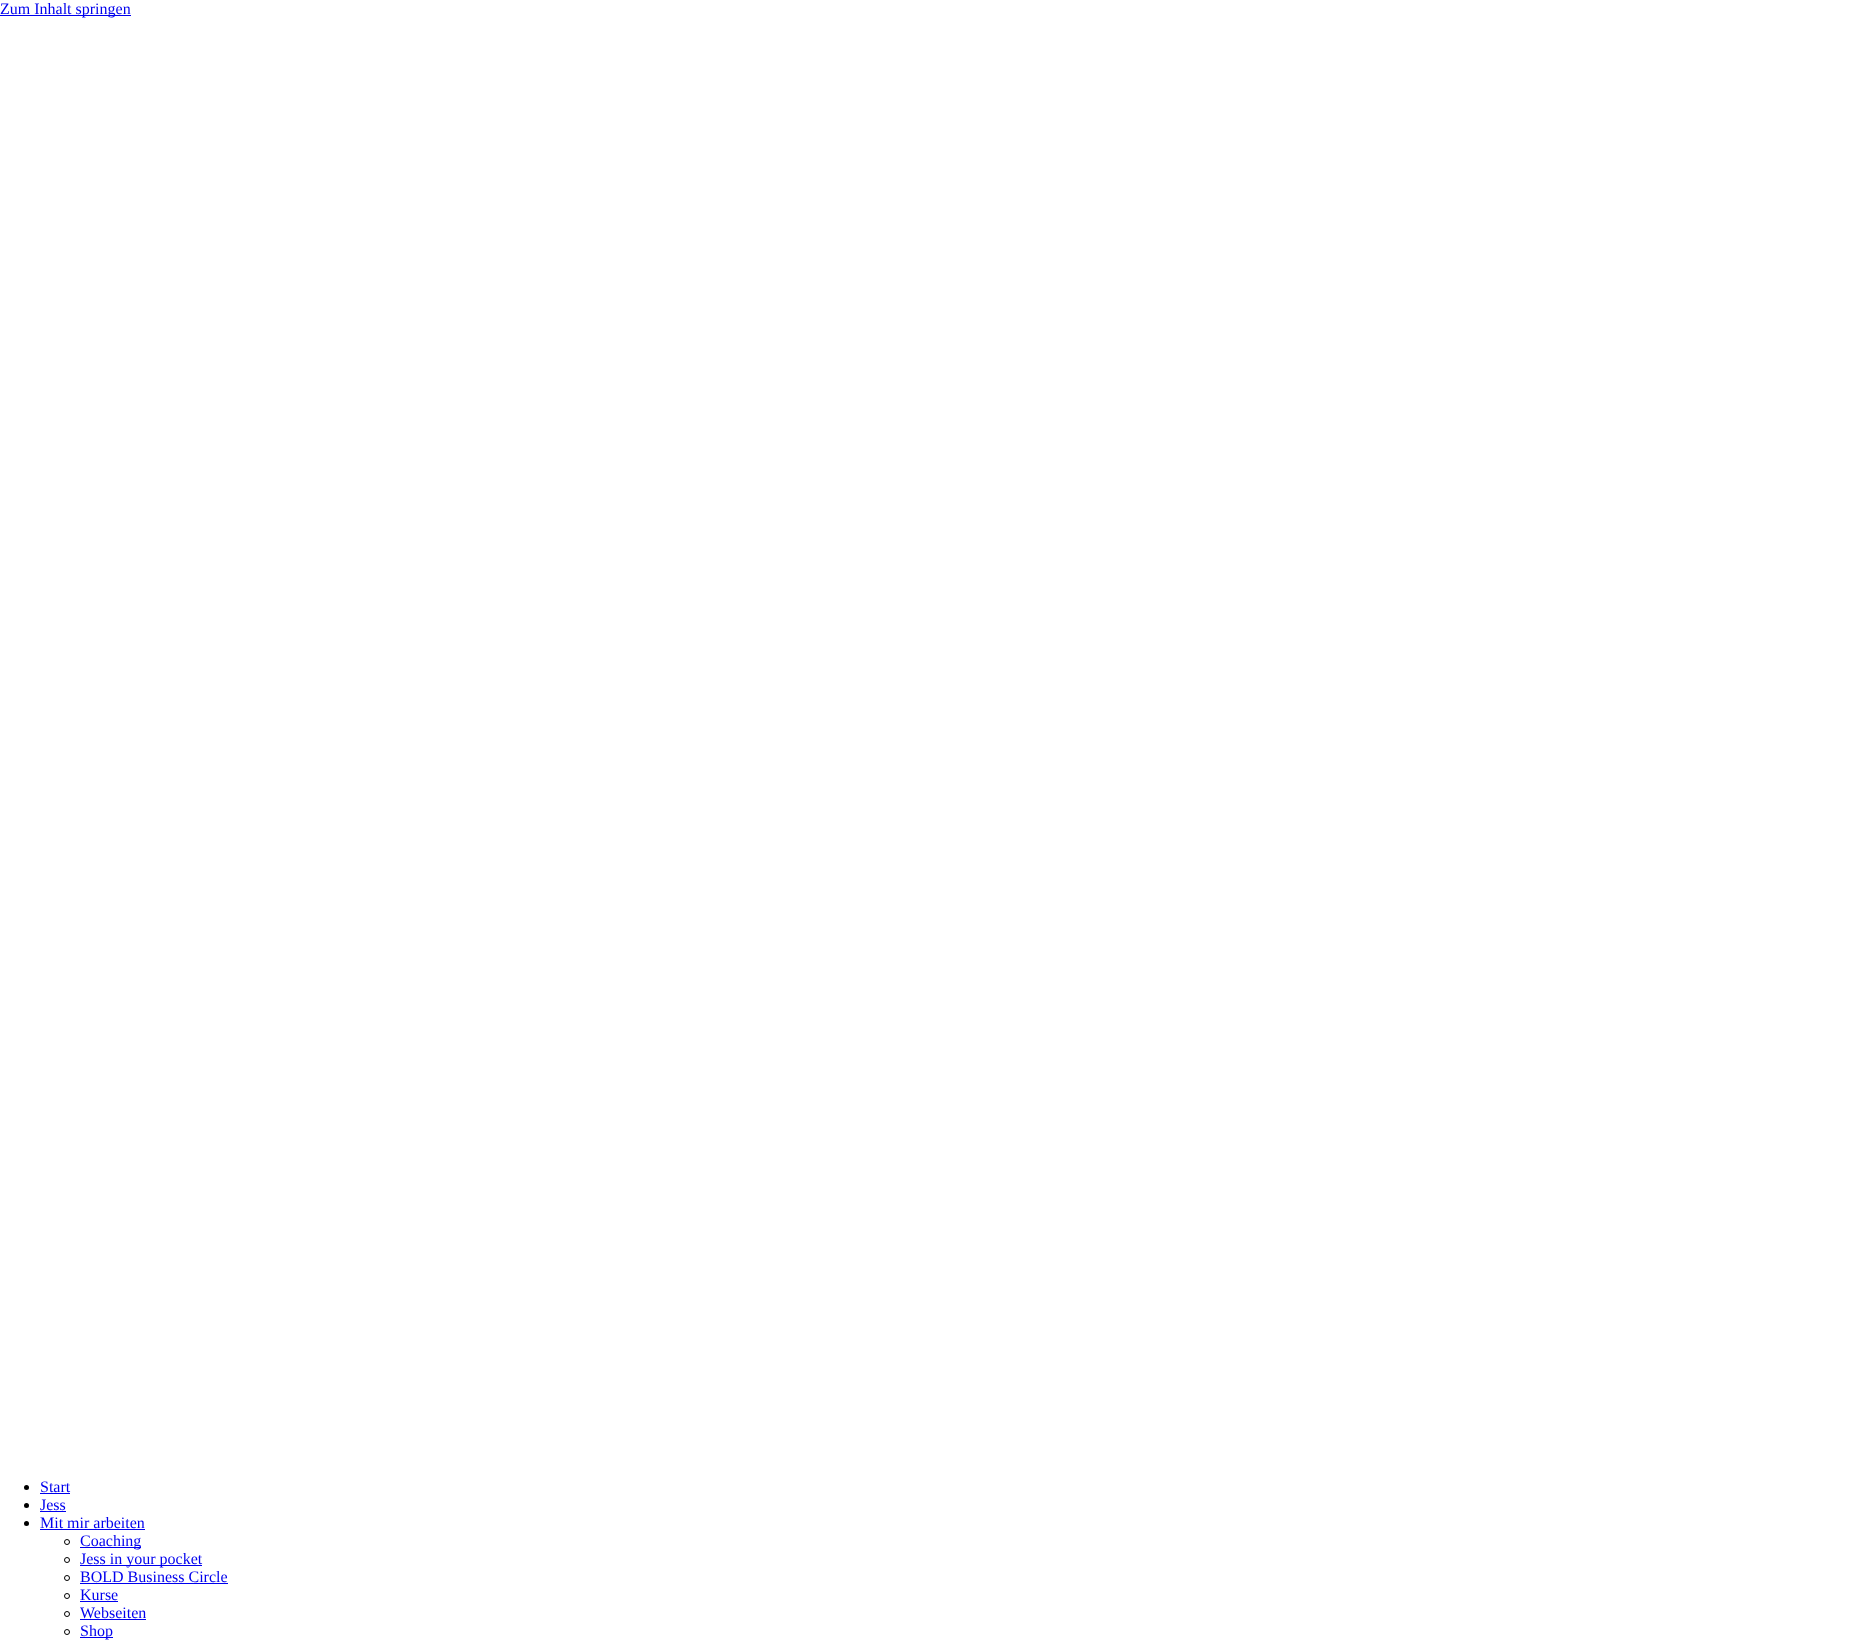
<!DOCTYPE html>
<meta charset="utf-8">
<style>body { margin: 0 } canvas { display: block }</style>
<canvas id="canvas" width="1859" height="1643"></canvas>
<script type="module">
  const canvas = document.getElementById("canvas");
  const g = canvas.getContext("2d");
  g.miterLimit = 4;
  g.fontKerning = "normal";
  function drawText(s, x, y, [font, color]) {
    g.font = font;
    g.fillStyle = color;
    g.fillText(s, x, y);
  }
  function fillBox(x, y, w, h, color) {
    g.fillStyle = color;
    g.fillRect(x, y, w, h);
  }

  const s1 = ["16px Liberation Serif", "#0000EE"];

  fillBox(0, 0, 1859, 1643, "#FFFFFF");
  fillBox(0, 15, 131, 1, "#0000EE");
  drawText("Zum Inhalt springen", 0, 14, s1);
  g.fillStyle = "#000000";
  g.beginPath();
  g.arc(26.5, 1487.5, 2.5, 0, Math.PI * 2);
  g.fill();
  drawText("Start", 40, 1492, s1);
  fillBox(40, 1493, 30, 1, "#0000EE");
  g.fillStyle = "#000000";
  g.beginPath();
  g.arc(26.5, 1505.5, 2.5, 0, Math.PI * 2);
  g.fill();
  drawText("Jess", 40, 1510, s1);
  fillBox(40, 1511, 26, 1, "#0000EE");
  g.fillStyle = "#000000";
  g.beginPath();
  g.arc(26.5, 1523.5, 2.5, 0, Math.PI * 2);
  g.fill();
  drawText("Mit mir arbeiten", 40, 1528, s1);
  fillBox(40, 1529, 105, 1, "#0000EE");
  g.beginPath();
  g.arc(67, 1542, 2.5, 0, Math.PI * 2);
  g.strokeStyle = "#000000";
  g.stroke();
  fillBox(80, 1547, 61, 1, "#0000EE");
  drawText("Coaching", 80, 1546, s1);
  g.beginPath();
  g.arc(67, 1560, 2.5, 0, Math.PI * 2);
  g.stroke();
  fillBox(80, 1565, 122, 1, "#0000EE");
  drawText("Jess in your pocket", 80, 1564, s1);
  g.beginPath();
  g.arc(67, 1578, 2.5, 0, Math.PI * 2);
  g.stroke();
  drawText("BOLD Business Circle", 80, 1582, s1);
  fillBox(80, 1583, 148, 1, "#0000EE");
  g.beginPath();
  g.arc(67, 1596, 2.5, 0, Math.PI * 2);
  g.stroke();
  drawText("Kurse", 80, 1600, s1);
  fillBox(80, 1601, 38, 1, "#0000EE");
  g.beginPath();
  g.arc(67, 1614, 2.5, 0, Math.PI * 2);
  g.stroke();
  drawText("Webseiten", 80, 1618, s1);
  fillBox(80, 1619, 66, 1, "#0000EE");
  g.beginPath();
  g.arc(67, 1632, 2.5, 0, Math.PI * 2);
  g.stroke();
  fillBox(80, 1637, 33, 1, "#0000EE");
  drawText("Shop", 80, 1636, s1);
</script>
